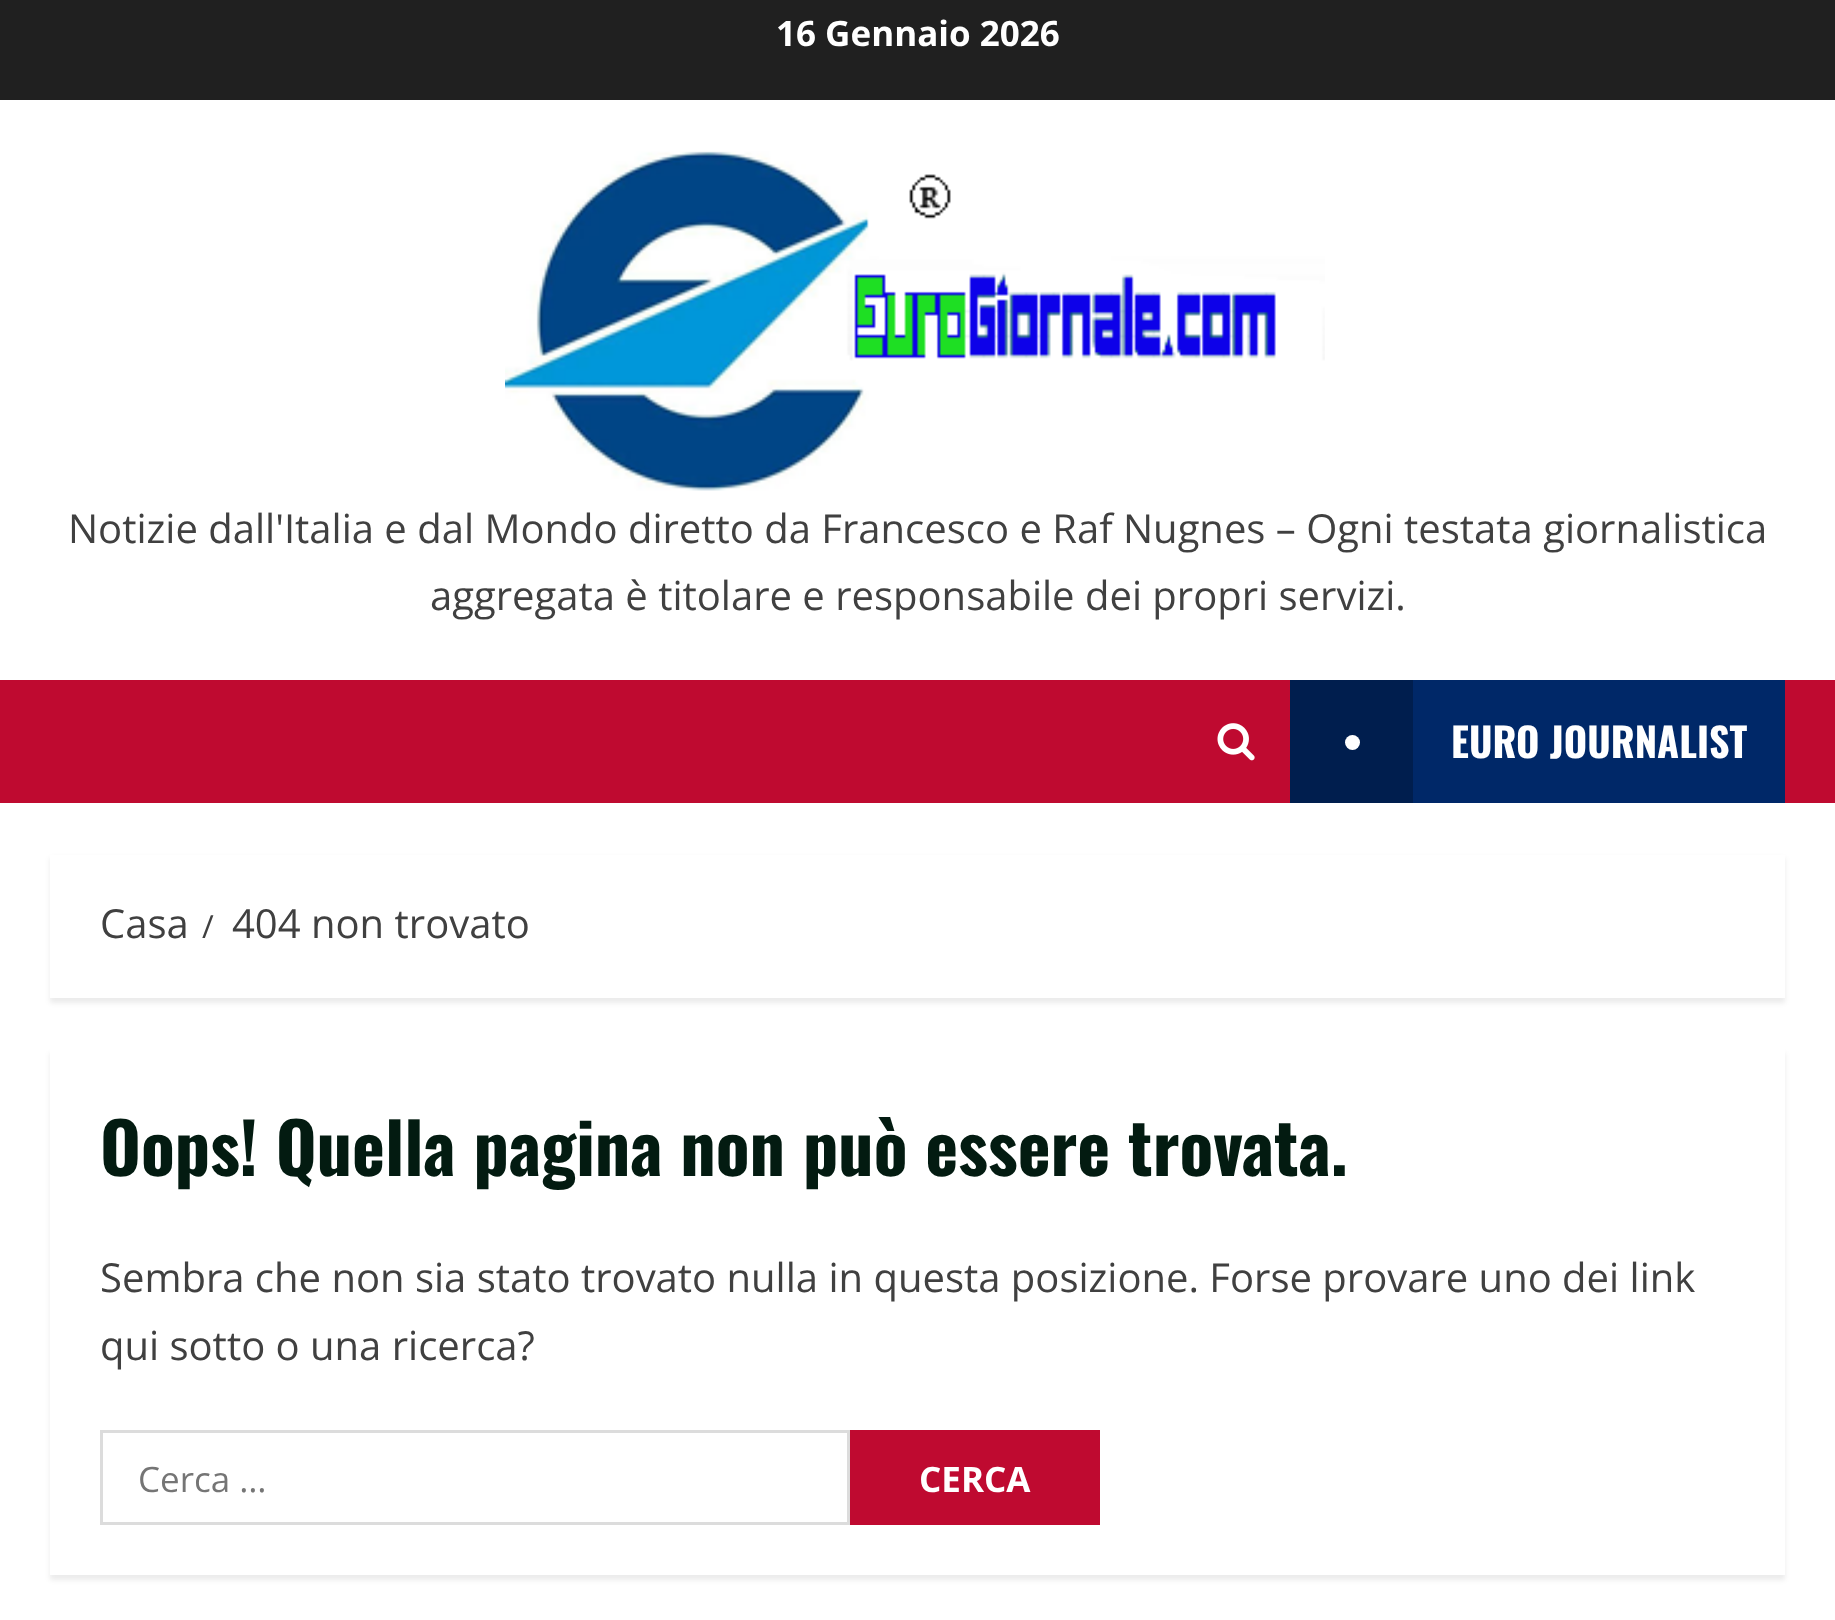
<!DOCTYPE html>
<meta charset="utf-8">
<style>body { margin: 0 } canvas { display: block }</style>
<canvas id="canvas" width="1835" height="1620"></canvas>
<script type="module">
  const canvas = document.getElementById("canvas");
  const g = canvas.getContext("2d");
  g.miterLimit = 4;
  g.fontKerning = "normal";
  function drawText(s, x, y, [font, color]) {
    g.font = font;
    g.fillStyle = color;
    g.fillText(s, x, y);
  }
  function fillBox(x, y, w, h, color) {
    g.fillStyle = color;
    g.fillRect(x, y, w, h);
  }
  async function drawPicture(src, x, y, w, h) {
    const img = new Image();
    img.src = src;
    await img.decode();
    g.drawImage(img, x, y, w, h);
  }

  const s1 = ["bold 35px Open Sans", "#FFFFFF"];
  const s2 = ["40px Open Sans", "#404040"];
  const s3 = ["bold 40px Oswald", "#FFFFFF"];
  const s4 = ["32px Open Sans", "#404040"];
  const s5 = ["bold 70px Oswald", "#031B11"];
  const s6 = ["35px Open Sans", "#757575"];

  fillBox(0, 0, 1835, 1620, "#FFFFFF");
  fillBox(0, 0, 1835, 100, "#202020");
  drawText("16 Gennaio 2026", 776, 46, s1);
  await drawPicture("pic1.png", 505, 151, 820, 340);
  drawText("Notizie dall'Italia e dal Mondo diretto da Francesco e Raf Nugnes – Ogni testata giornalistica", 68, 543, s2);
  drawText("aggregata è titolare e responsabile dei propri servizi.", 430, 610, s2);
  fillBox(0, 680, 1835, 123, "#BF0A30");
  await drawPicture("pic2.png", 1217, 723, 38, 38);
  fillBox(1413, 680, 372, 123, "#002868");
  fillBox(1290, 680, 123, 123, "#001E4E");
  g.fillStyle = "#FFFFFF";
  g.beginPath();
  g.arc(1352.5, 742.5, 7.5, 0, Math.PI * 2);
  g.fill();
  drawText("EURO JOURNALIST", 1451, 758, s3);
  g.fillStyle = "rgba(0, 0, 0, 0.08)";
  g.filter = "blur(2.5px)";
  g.beginPath();
  g.rect(50, 858, 1735, 145);
  g.fill();
  g.filter = "none";
  fillBox(50, 855, 1735, 143, "#FFFFFF");
  drawText("Casa", 100, 938, s2);
  drawText("/", 202, 938, s4);
  drawText("404 non trovato", 232, 938, s2);
  g.save();
  g.beginPath();
  g.moveTo(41, 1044);
  g.lineTo(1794, 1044);
  g.lineTo(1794, 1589);
  g.lineTo(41, 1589);
  g.closePath();
  g.moveTo(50, 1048);
  g.lineTo(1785, 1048);
  g.lineTo(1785, 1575);
  g.lineTo(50, 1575);
  g.closePath();
  g.clip("evenodd");
  g.fillStyle = "rgba(0, 0, 0, 0.08)";
  g.filter = "blur(2.5px)";
  g.beginPath();
  g.rect(50, 1053, 1735, 527);
  g.fill();
  g.filter = "none";
  g.restore();
  drawText("Oops! Quella pagina non può essere trovata.", 100, 1176, s5);
  drawText("Sembra che non sia stato trovato nulla in questa posizione. Forse provare uno dei link", 100, 1292, s2);
  drawText("qui sotto o una ricerca?", 100, 1360, s2);
  g.strokeStyle = "#DCDCDC";
  g.lineWidth = 3;
  g.strokeRect(101.5, 1431.5, 747, 92);
  drawText("Cerca …", 138, 1492, s6);
  fillBox(850, 1430, 250, 95, "#BF0A30");
  drawText("CERCA", 919, 1492, s1);
</script>
